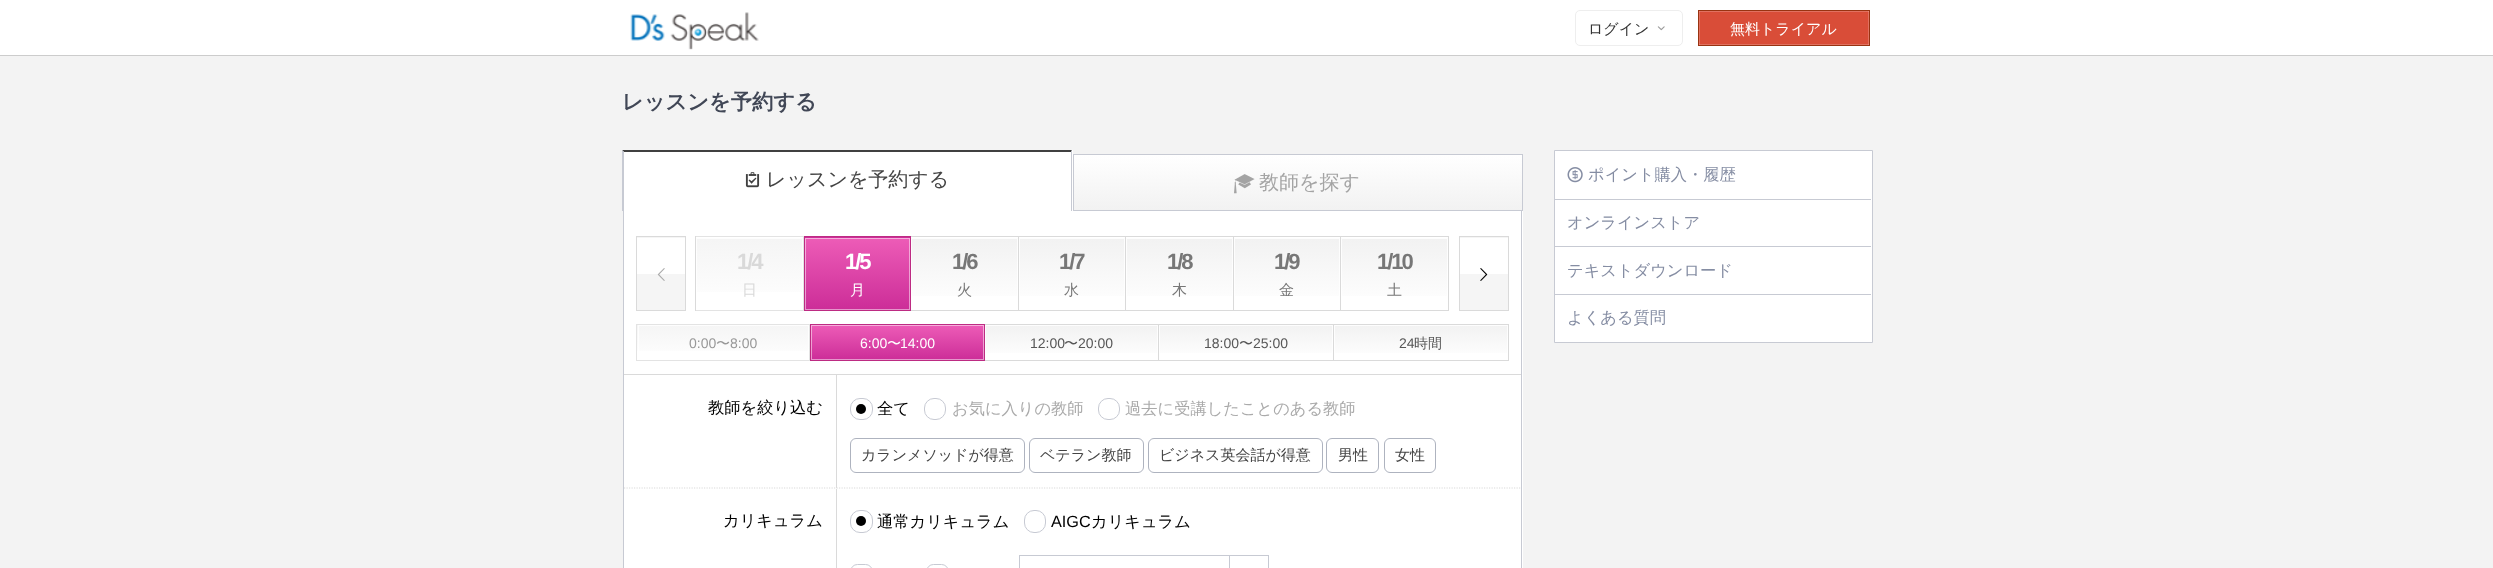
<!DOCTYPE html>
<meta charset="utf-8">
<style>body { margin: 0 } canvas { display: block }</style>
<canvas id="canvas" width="2493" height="568"></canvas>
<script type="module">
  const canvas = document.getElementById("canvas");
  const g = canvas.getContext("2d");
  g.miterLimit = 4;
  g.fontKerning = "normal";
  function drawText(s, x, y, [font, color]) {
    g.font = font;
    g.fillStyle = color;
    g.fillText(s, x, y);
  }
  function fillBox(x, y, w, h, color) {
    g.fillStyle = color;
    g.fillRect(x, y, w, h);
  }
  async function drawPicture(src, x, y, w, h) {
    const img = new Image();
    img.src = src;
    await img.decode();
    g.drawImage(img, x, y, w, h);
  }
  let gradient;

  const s1 = ["500 15px WenQuanYi Zen Hei", "#333333"];
  const s2 = ["500 15px WenQuanYi Zen Hei", "#FFFFFF"];
  const s3 = ["bold 21.25px WenQuanYi Zen Hei", "#414756"];
  const s4 = ["500 20px WenQuanYi Zen Hei", "#444444"];
  const s5 = ["500 20px WenQuanYi Zen Hei", "#A4A4A4"];
  const s6 = ["bold 22px Liberation Sans", "#D9D9D9"];
  const s7 = ["500 15px WenQuanYi Zen Hei", "#D9D9D9"];
  const s8 = ["bold 22px Liberation Sans", "#FFFFFF"];
  const s9 = ["bold 22px Liberation Sans", "#777777"];
  const s10 = ["500 15px WenQuanYi Zen Hei", "#777777"];
  const s11 = ["14px Liberation Sans", "#999999"];
  const s12 = ["500 14px WenQuanYi Zen Hei", "#999999"];
  const s13 = ["14px Liberation Sans", "#FFFFFF"];
  const s14 = ["500 14px WenQuanYi Zen Hei", "#FFFFFF"];
  const s15 = ["14px Liberation Sans", "#575757"];
  const s16 = ["500 14px WenQuanYi Zen Hei", "#575757"];
  const s17 = ["500 16.25px WenQuanYi Zen Hei", "#000000"];
  const s18 = ["500 16.25px WenQuanYi Zen Hei", "#AAAAAA"];
  const s19 = ["500 15px WenQuanYi Zen Hei", "#444444"];
  const s20 = ["16.25px Liberation Sans", "#000000"];
  const s21 = ["500 16.25px WenQuanYi Zen Hei", "#858DA3"];

  fillBox(0, 0, 2493, 568, "#F3F3F3");
  fillBox(0, 0, 2493, 55, "#FFFFFF");
  fillBox(0, 55, 2493, 1, "#CCCCCC");
  await drawPicture("pic1.png", 630, 12, 129, 38);
  g.beginPath();
  g.roundRect(1575.5, 10.5, 107, 35, 4.5);
  g.strokeStyle = "#EEEEEE";
  g.stroke();
  drawText("ログイン", 1588, 34, s1);
  await drawPicture("pic2.png", 1657, 26, 8, 5);
  g.fillStyle = "#D94D38";
  g.beginPath();
  g.rect(1699.5, 11.5, 169, 33);
  g.fill();
  g.strokeStyle = "#E17160";
  g.stroke();
  g.strokeStyle = "#993311";
  g.strokeRect(1698.5, 10.5, 171, 35);
  drawText("無料トライアル", 1730, 34, s2);
  drawText("レッスンを予約する", 622, 109, s3);
  fillBox(623, 209, 1, 359, "#C7CAD3");
  fillBox(623, 150, 450, 61, "#FFFFFF");
  g.fillStyle = "#404040";
  g.beginPath();
  g.moveTo(622, 150);
  g.lineTo(1072, 150);
  g.lineTo(1071, 152);
  g.lineTo(624, 152);
  g.closePath();
  g.fill();
  g.fillStyle = "#C7CAD3";
  g.beginPath();
  g.moveTo(1072, 150);
  g.lineTo(1072, 211);
  g.lineTo(1071, 211);
  g.lineTo(1071, 152);
  g.closePath();
  g.fill();
  g.beginPath();
  g.moveTo(622, 211);
  g.lineTo(622, 150);
  g.lineTo(624, 152);
  g.lineTo(624, 211);
  g.closePath();
  g.fill();
  await drawPicture("pic3.png", 745, 172, 15, 16);
  drawText("レッスンを予約する", 766, 186, s4);
  fillBox(624, 211, 899, 357, "#FFFFFF");
  fillBox(1521, 209, 1, 359, "#C7CAD3");
  gradient = g.createLinearGradient(1298, 155, 1298, 210);
  gradient.addColorStop(0, "#FFFFFF");
  gradient.addColorStop(1, "#F2F2F2");
  g.fillStyle = gradient;
  g.fillRect(1074, 155, 448, 55);
  g.strokeStyle = "#C7CAD3";
  g.strokeRect(1073.5, 154.5, 449, 56);
  await drawPicture("pic4.png", 1234, 174, 21, 20);
  drawText("教師を探す", 1259, 189, s5);
  fillBox(636, 237, 50, 1, "#F5F5F5");
  fillBox(637, 274, 48, 36, "#F5F5F5");
  g.strokeStyle = "#DADADA";
  g.strokeRect(636.5, 236.5, 49, 74);
  await drawPicture("pic5.png", 657, 268, 8, 13);
  fillBox(695, 236, 1, 75, "#DADADA");
  gradient = g.createLinearGradient(749, 238, 749, 310);
  gradient.addColorStop(0.02, "#F5F5F5");
  gradient.addColorStop(0.99, "#FFFFFF");
  g.fillStyle = gradient;
  g.fillRect(696, 238, 107, 54);
  g.strokeStyle = "rgba(255, 255, 255, 0.8)";
  g.strokeRect(696.5, 238.5, 106, 71);
  fillBox(696, 236, 108, 1, "#E3E3E3");
  fillBox(803, 236, 1, 75, "#E3E3E3");
  fillBox(696, 310, 108, 1, "#E3E3E3");
  g.letterSpacing = "-2px";
  drawText("1/4", 737, 269, s6);
  g.letterSpacing = "0px";
  drawText("日", 742, 295, s7);
  gradient = g.createLinearGradient(858, 165, 858, 238);
  gradient.addColorStop(0, "#ED5CB7");
  gradient.addColorStop(1, "#CC2D98");
  g.fillStyle = gradient;
  g.fillRect(804, 237, 107, 1);
  gradient = g.createLinearGradient(858, 238, 858, 310);
  gradient.addColorStop(0, "#ED5CB7");
  gradient.addColorStop(1, "#CC2D98");
  g.fillStyle = gradient;
  g.fillRect(805, 238, 105, 72);
  g.strokeStyle = "rgba(255, 255, 255, 0.5)";
  g.strokeRect(805.5, 238.5, 104, 71);
  g.strokeStyle = "#BD2B83";
  g.strokeRect(804.5, 236.5, 106, 74);
  g.letterSpacing = "-2px";
  drawText("1/5", 845, 269, s8);
  g.letterSpacing = "0px";
  drawText("月", 850, 295, s2);
  gradient = g.createLinearGradient(964, 238, 964, 310);
  gradient.addColorStop(0.02, "#F2F2F2");
  gradient.addColorStop(0.99, "#FFFFFF");
  g.fillStyle = gradient;
  g.fillRect(911, 238, 107, 58);
  g.strokeStyle = "rgba(255, 255, 255, 0.8)";
  g.strokeRect(911.5, 238.5, 106, 71);
  fillBox(911, 236, 538, 1, "#DADADA");
  fillBox(1018, 236, 1, 75, "#DADADA");
  fillBox(911, 310, 108, 1, "#DADADA");
  g.letterSpacing = "-2px";
  drawText("1/6", 952, 269, s9);
  g.letterSpacing = "0px";
  drawText("火", 957, 295, s10);
  gradient = g.createLinearGradient(1072, 238, 1072, 310);
  gradient.addColorStop(0.02, "#F2F2F2");
  gradient.addColorStop(0.99, "#FFFFFF");
  g.fillStyle = gradient;
  g.fillRect(1019, 238, 106, 58);
  g.strokeRect(1019.5, 238.5, 105, 71);
  fillBox(1125, 236, 1, 75, "#DADADA");
  fillBox(1019, 310, 107, 1, "#DADADA");
  g.letterSpacing = "-2px";
  drawText("1/7", 1059, 269, s9);
  g.letterSpacing = "0px";
  drawText("水", 1064, 295, s10);
  gradient = g.createLinearGradient(1179, 238, 1179, 310);
  gradient.addColorStop(0.02, "#F2F2F2");
  gradient.addColorStop(0.99, "#FFFFFF");
  g.fillStyle = gradient;
  g.fillRect(1126, 238, 107, 58);
  g.strokeRect(1126.5, 238.5, 106, 71);
  fillBox(1233, 236, 1, 75, "#DADADA");
  fillBox(1126, 310, 108, 1, "#DADADA");
  g.letterSpacing = "-2px";
  drawText("1/8", 1167, 269, s9);
  g.letterSpacing = "0px";
  drawText("木", 1172, 295, s10);
  gradient = g.createLinearGradient(1287, 238, 1287, 310);
  gradient.addColorStop(0.02, "#F2F2F2");
  gradient.addColorStop(0.99, "#FFFFFF");
  g.fillStyle = gradient;
  g.fillRect(1234, 238, 106, 58);
  g.strokeRect(1234.5, 238.5, 105, 71);
  fillBox(1340, 236, 1, 75, "#DADADA");
  fillBox(1234, 310, 107, 1, "#DADADA");
  g.letterSpacing = "-2px";
  drawText("1/9", 1274, 269, s9);
  g.letterSpacing = "0px";
  drawText("金", 1279, 295, s10);
  gradient = g.createLinearGradient(1394, 238, 1394, 310);
  gradient.addColorStop(0.02, "#F2F2F2");
  gradient.addColorStop(0.99, "#FFFFFF");
  g.fillStyle = gradient;
  g.fillRect(1341, 238, 107, 58);
  g.strokeRect(1341.5, 238.5, 106, 71);
  fillBox(1448, 236, 1, 75, "#DADADA");
  fillBox(1341, 310, 108, 1, "#DADADA");
  g.letterSpacing = "-2px";
  drawText("1/10", 1377, 269, s9);
  g.letterSpacing = "0px";
  drawText("土", 1387, 295, s10);
  fillBox(1459, 237, 50, 1, "#F5F5F5");
  fillBox(1460, 274, 48, 36, "#F5F5F5");
  g.strokeStyle = "#DADADA";
  g.strokeRect(1459.5, 236.5, 49, 74);
  await drawPicture("pic6.png", 1480, 268, 8, 13);
  gradient = g.createLinearGradient(723, 325, 723, 360);
  gradient.addColorStop(0.02, "#F5F5F5");
  gradient.addColorStop(0.99, "#FFFFFF");
  g.fillStyle = gradient;
  g.fillRect(637, 325, 172, 26);
  g.strokeStyle = "rgba(255, 255, 255, 0.8)";
  g.strokeRect(638.5, 325.5, 170, 34);
  g.strokeStyle = "#E3E3E3";
  g.strokeRect(636.5, 324.5, 173, 36);
  drawText("0:00", 689, 348, s11);
  drawText("〜", 716, 348, s12);
  drawText("8:00", 730, 348, s11);
  gradient = g.createLinearGradient(898, 325, 898, 360);
  gradient.addColorStop(0, "#ED5CB7");
  gradient.addColorStop(1, "#CC2D98");
  g.fillStyle = gradient;
  g.fillRect(811, 325, 173, 35);
  g.strokeStyle = "rgba(255, 255, 255, 0.5)";
  g.strokeRect(811.5, 325.5, 172, 34);
  g.strokeStyle = "#BD2B83";
  g.strokeRect(810.5, 324.5, 174, 36);
  drawText("6:00", 860, 348, s13);
  drawText("〜", 887, 348, s14);
  drawText("14:00", 900, 348, s13);
  gradient = g.createLinearGradient(1071, 325, 1071, 360);
  gradient.addColorStop(0.02, "#F2F2F2");
  gradient.addColorStop(0.99, "#FFFFFF");
  g.fillStyle = gradient;
  g.fillRect(985, 325, 173, 28);
  g.strokeStyle = "rgba(255, 255, 255, 0.8)";
  g.strokeRect(985.5, 325.5, 172, 34);
  fillBox(985, 324, 524, 1, "#DADADA");
  fillBox(1158, 324, 1, 37, "#DADADA");
  fillBox(985, 360, 174, 1, "#DADADA");
  drawText("12:00", 1030, 348, s15);
  drawText("〜", 1064, 348, s16);
  drawText("20:00", 1078, 348, s15);
  gradient = g.createLinearGradient(1246, 325, 1246, 360);
  gradient.addColorStop(0.02, "#F2F2F2");
  gradient.addColorStop(0.99, "#FFFFFF");
  g.fillStyle = gradient;
  g.fillRect(1159, 325, 174, 28);
  g.strokeRect(1159.5, 325.5, 173, 34);
  fillBox(1333, 324, 1, 37, "#DADADA");
  fillBox(1159, 360, 175, 1, "#DADADA");
  drawText("18:00", 1204, 348, s15);
  drawText("〜", 1239, 348, s16);
  drawText("25:00", 1253, 348, s15);
  gradient = g.createLinearGradient(1421, 325, 1421, 360);
  gradient.addColorStop(0.02, "#F2F2F2");
  gradient.addColorStop(0.99, "#FFFFFF");
  g.fillStyle = gradient;
  g.fillRect(1334, 325, 174, 28);
  g.strokeRect(1334.5, 325.5, 173, 34);
  fillBox(1508, 324, 1, 37, "#DADADA");
  fillBox(1334, 360, 175, 1, "#DADADA");
  drawText("24", 1399, 348, s15);
  drawText("時間", 1414, 348, s16);
  fillBox(624, 374, 897, 1, "#DADADA");
  fillBox(836, 375, 1, 113, "#DADADA");
  drawText("教師を絞り込む", 708, 413, s17);
  g.beginPath();
  g.roundRect(850.5, 398.5, 22, 21, 9.5);
  g.strokeStyle = "#C7CAD3";
  g.stroke();
  drawText("全て", 877, 414, s17);
  g.beginPath();
  g.arc(861, 409, 5, 0, Math.PI * 2);
  g.fill();
  g.beginPath();
  g.roundRect(924.5, 398.5, 21, 21, 9.5);
  g.stroke();
  drawText("お気に入りの教師", 952, 414, s18);
  g.beginPath();
  g.roundRect(1098.5, 398.5, 21, 21, 9.5);
  g.stroke();
  drawText("過去に受講したことのある教師", 1125, 414, s18);
  g.beginPath();
  g.roundRect(850.5, 438.5, 174, 34, 5.5);
  g.strokeStyle = "#AEB3BF";
  g.stroke();
  drawText("カランメソッドが得意", 861, 460, s19);
  g.beginPath();
  g.roundRect(1029.5, 438.5, 114, 34, 5.5);
  g.stroke();
  drawText("ベテラン教師", 1040, 460, s19);
  g.beginPath();
  g.roundRect(1148.5, 438.5, 174, 34, 5.5);
  g.stroke();
  drawText("ビジネス英会話が得意", 1159, 460, s19);
  g.beginPath();
  g.roundRect(1326.5, 438.5, 52, 34, 5.5);
  g.stroke();
  drawText("男性", 1338, 460, s19);
  g.beginPath();
  g.roundRect(1384.5, 438.5, 51, 34, 5.5);
  g.stroke();
  drawText("女性", 1395, 460, s19);
  g.beginPath();
  g.moveTo(624, 488);
  g.lineTo(1521, 488);
  g.strokeStyle = "#DADADA";
  g.lineWidth = 1.2;
  g.setLineDash([1.25, 1.25]);
  g.stroke();
  fillBox(836, 489, 1, 79, "#DADADA");
  drawText("カリキュラム", 723, 526, s17);
  g.beginPath();
  g.roundRect(850.5, 510.5, 22, 22, 9.5);
  g.strokeStyle = "#C7CAD3";
  g.lineWidth = 1;
  g.setLineDash([]);
  g.stroke();
  drawText("通常カリキュラム", 877, 527, s17);
  g.beginPath();
  g.arc(861, 521, 5, 0, Math.PI * 2);
  g.fill();
  g.beginPath();
  g.roundRect(1024.5, 510.5, 21, 22, 9.5);
  g.stroke();
  drawText("AIGC", 1051, 527, s20);
  drawText("カリキュラム", 1091, 527, s17);
  g.strokeRect(1019.5, 555.5, 249, 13);
  g.strokeRect(1229.5, 555.5, 39, 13);
  g.beginPath();
  g.roundRect(850.5, 564.5, 22, 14, 9.5);
  g.stroke();
  g.beginPath();
  g.roundRect(926.5, 564.5, 22, 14, 9.5);
  g.stroke();
  g.fillStyle = "#FFFFFF";
  g.beginPath();
  g.rect(1554.5, 150.5, 318, 192);
  g.fill();
  g.stroke();
  await drawPicture("pic7.png", 1567, 167, 16, 16);
  drawText("ポイント購入・履歴", 1588, 180, s21);
  fillBox(1555, 199, 316, 1, "#C7CAD3");
  drawText("オンラインストア", 1567, 228, s21);
  fillBox(1555, 246, 316, 1, "#C7CAD3");
  drawText("テキストダウンロード", 1567, 276, s21);
  fillBox(1555, 294, 316, 1, "#C7CAD3");
  drawText("よくある質問", 1567, 323, s21);
</script>
